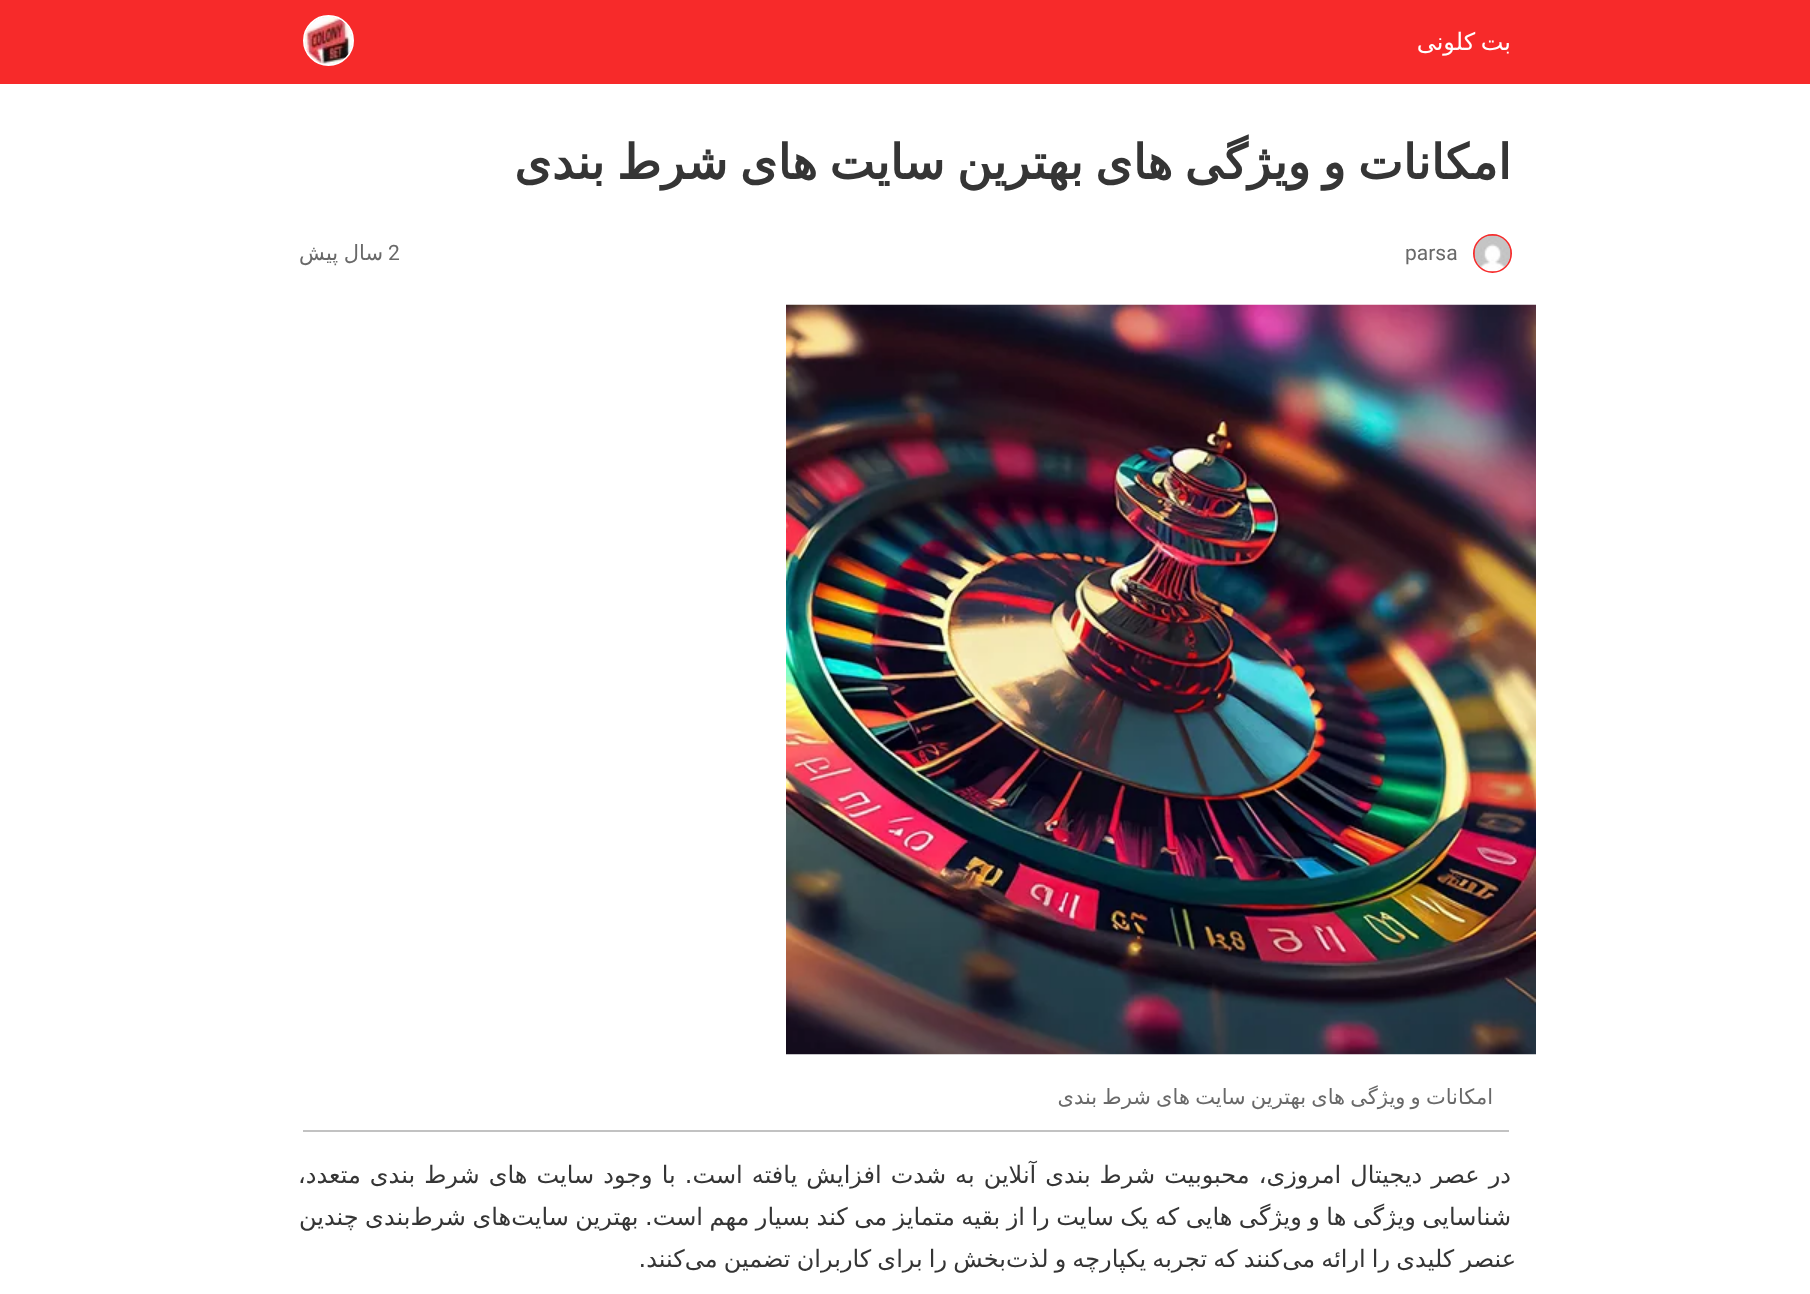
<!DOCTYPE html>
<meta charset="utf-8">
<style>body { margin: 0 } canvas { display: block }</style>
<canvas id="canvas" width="1810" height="1294"></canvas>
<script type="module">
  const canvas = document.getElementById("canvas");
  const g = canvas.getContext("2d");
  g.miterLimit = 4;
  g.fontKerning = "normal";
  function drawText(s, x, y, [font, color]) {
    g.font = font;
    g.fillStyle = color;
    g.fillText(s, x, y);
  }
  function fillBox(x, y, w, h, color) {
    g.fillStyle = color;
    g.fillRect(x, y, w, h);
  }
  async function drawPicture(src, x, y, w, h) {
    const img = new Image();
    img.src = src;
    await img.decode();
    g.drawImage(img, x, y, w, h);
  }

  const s1 = ["24px DejaVu Sans", "#FFFFFF"];
  const s2 = ["bold 48px DejaVu Sans", "#353535"];
  const s3 = ["21px Roboto", "#696969"];
  const s4 = ["21px DejaVu Sans", "#696969"];
  const s5 = ["24px DejaVu Sans", "#353535"];

  fillBox(0, 0, 1810, 1294, "#FFFFFF");
  fillBox(0, 0, 1810, 84, "#F72A2A");
  g.wordSpacing = "-2px";
  g.direction = "rtl";
  drawText("بت کلونی", 1511, 50, s1);
  g.beginPath();
  g.arc(328.5, 40.5, 24.5, 0, Math.PI * 2);
  g.strokeStyle = "#FFFFFF";
  g.lineWidth = 2;
  g.stroke();
  await drawPicture("pic1.png", 305, 17, 47, 47);
  g.wordSpacing = "-3.25px";
  drawText("امکانات و ویژگی های بهترین سایت های شرط بندی", 1511, 179, s2);
  g.beginPath();
  g.arc(1492.5, 253.5, 18.5, 0, Math.PI * 2);
  g.strokeStyle = "#F72A2A";
  g.stroke();
  await drawPicture("pic2.png", 1474, 235, 37, 37);
  g.wordSpacing = "0px";
  g.direction = "ltr";
  drawText("parsa", 1405, 260, s3);
  drawText("2", 388, 260, s3);
  g.wordSpacing = "-1px";
  g.direction = "rtl";
  drawText("سال پیش", 383, 260, s4);
  await drawPicture("pic3.png", 786, 304, 750, 751);
  fillBox(303, 1130, 1206, 2, "#C2C2C2");
  g.wordSpacing = "-1.5px";
  drawText("امکانات و ویژگی های بهترین سایت های شرط بندی", 1493, 1104, s4);
  g.wordSpacing = "1.4px";
  drawText("در عصر دیجیتال امروزی، محبوبیت شرط بندی آنلاین به شدت افزایش یافته است. با وجود سایت های شرط بندی متعدد،", 1511, 1183, s5);
  g.wordSpacing = "-1.15px";
  drawText("شناسایی ویژگی ها و ویژگی هایی که یک سایت را از بقیه متمایز می کند بسیار مهم است. بهترین سایت‌های شرط‌بندی چندین", 1511, 1225, s5);
  g.wordSpacing = "-1.5px";
  drawText("عنصر کلیدی را ارائه می‌کنند که تجربه یکپارچه و لذت‌بخش را برای کاربران تضمین می‌کنند.", 1516, 1267, s5);
</script>
